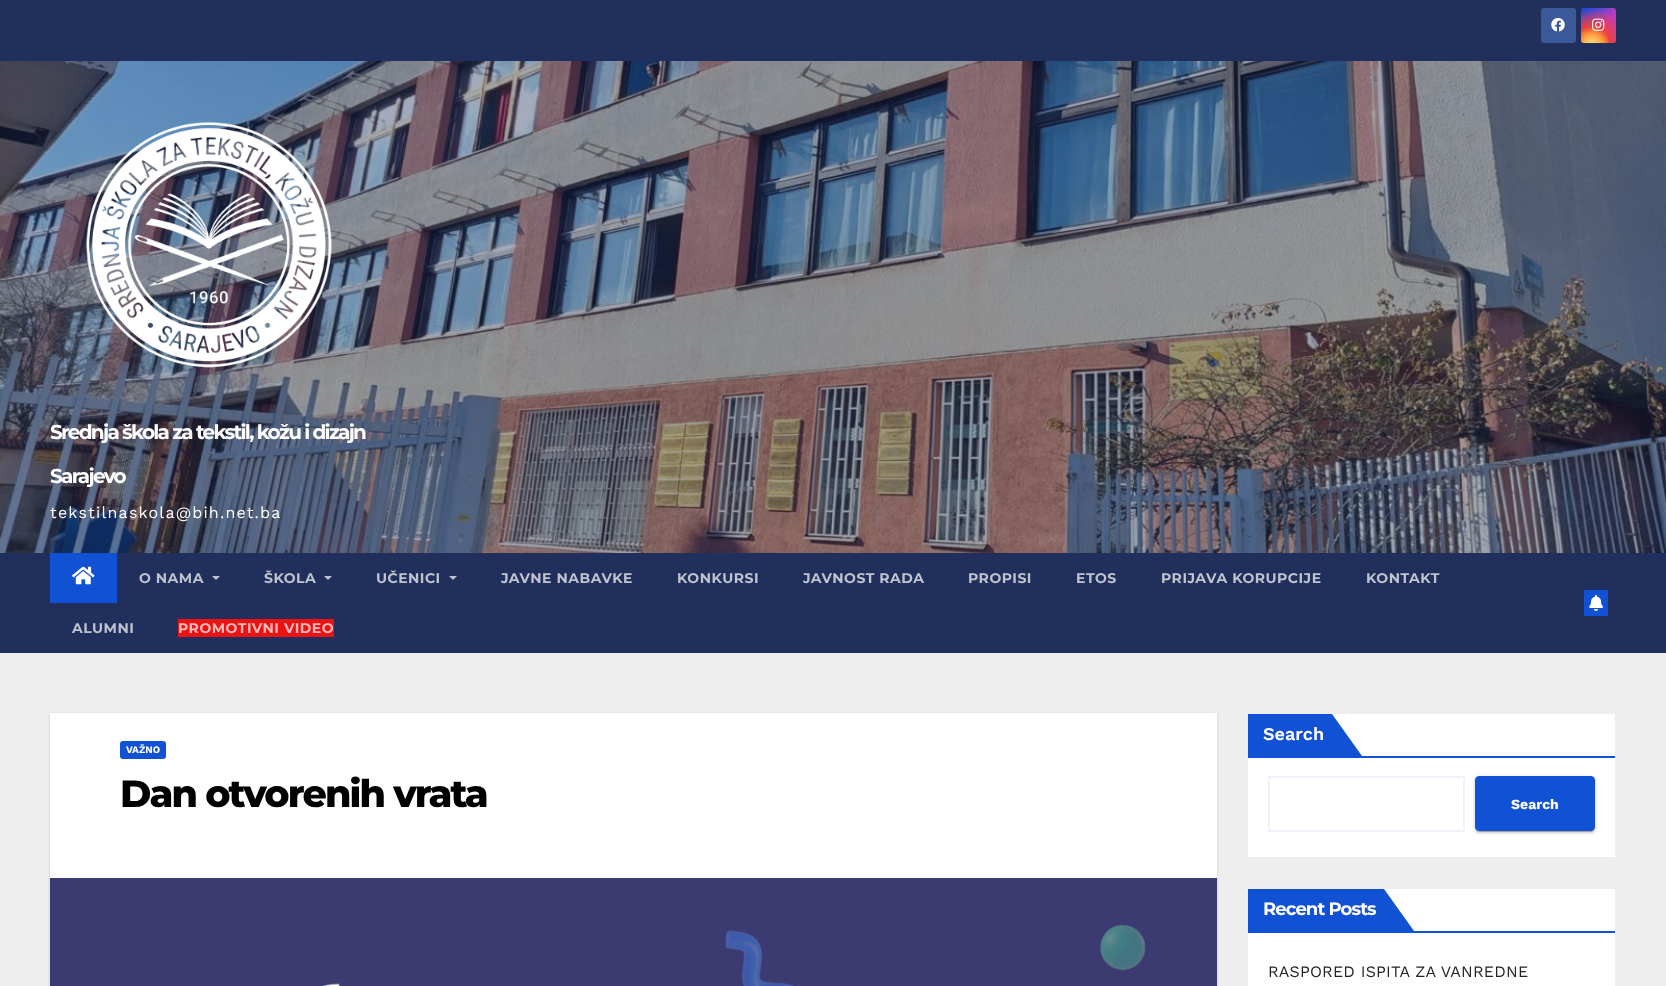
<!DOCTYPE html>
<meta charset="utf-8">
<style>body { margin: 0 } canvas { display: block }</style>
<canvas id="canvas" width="1666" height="986"></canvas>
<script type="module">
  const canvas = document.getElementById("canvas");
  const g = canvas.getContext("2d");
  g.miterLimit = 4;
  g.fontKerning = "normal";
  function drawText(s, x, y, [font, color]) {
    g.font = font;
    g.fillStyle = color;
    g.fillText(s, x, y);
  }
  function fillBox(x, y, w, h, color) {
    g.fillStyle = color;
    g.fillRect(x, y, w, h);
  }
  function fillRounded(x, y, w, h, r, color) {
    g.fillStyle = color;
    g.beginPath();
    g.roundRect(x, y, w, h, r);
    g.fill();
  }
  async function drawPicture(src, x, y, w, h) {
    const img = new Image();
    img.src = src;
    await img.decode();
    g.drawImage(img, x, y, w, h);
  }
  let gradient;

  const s1 = ["bold 20px Montserrat", "#FFFFFF"];
  const s2 = ["16px Work Sans", "#FFFFFF"];
  const s3 = ["bold 14px Montserrat", "#BEC3CF"];
  const s4 = ["bold 14px Montserrat", "#FABABA"];
  const s5 = ["bold 10px Work Sans", "#FFFFFF"];
  const s6 = ["800 38px Montserrat", "#000000"];
  const s7 = ["600 18px Work Sans", "#FFFFFF"];
  const s8 = ["bold 14px Work Sans", "#FFFFFF"];
  const s9 = ["bold 18px Montserrat", "#FFFFFF"];
  const s10 = ["16px Work Sans", "#222222"];

  fillBox(0, 0, 1666, 986, "#EEEEEE");
  fillBox(0, 0, 1666, 61, "#202F5B");
  fillRounded(1541, 8, 35, 35, 3, "#3B5998");
  await drawPicture("pic1.png", 1551, 18, 14, 14);
  gradient = g.createLinearGradient(1581, 8, 1616, 43);
  gradient.addColorStop(0.12, "#234BD7");
  gradient.addColorStop(0.58, "#C33CBE");
  g.fillStyle = gradient;
  g.beginPath();
  g.roundRect(1581, 8, 35, 35, 3);
  g.fill();
  gradient = g.createRadialGradient(1592, 45, 0, 1592, 45, 44);
  gradient.addColorStop(0, "#FFE17D");
  gradient.addColorStop(0.1, "#FFCD69");
  gradient.addColorStop(0.28, "#FA9137");
  gradient.addColorStop(0.42, "#EB4141");
  gradient.addColorStop(0.82, "rgba(235, 65, 65, 0)");
  g.fillStyle = gradient;
  g.beginPath();
  g.roundRect(1581, 8, 35, 35, 3);
  g.fill();
  await drawPicture("pic2.png", 1592, 18, 13, 13);
  await drawPicture("pic3.png", 0, 61, 1666, 492);
  await drawPicture("pic4.png", 86, 122, 246, 246);
  g.letterSpacing = "-1.7px";
  drawText("Srednja škola za tekstil, kožu i dizajn", 50, 439, s1);
  drawText("Sarajevo", 50, 483, s1);
  g.letterSpacing = "1.2px";
  drawText("tekstilnaskola@bih.net.ba", 50, 518, s2);
  fillBox(0, 553, 1666, 100, "#202F5B");
  fillBox(50, 553, 67, 50, "#1151D3");
  await drawPicture("pic5.png", 72, 566, 23, 19);
  g.letterSpacing = "0.5px";
  drawText("O NAMA", 139, 583, s3);
  g.beginPath();
  g.moveTo(212, 576);
  g.lineTo(220, 576);
  g.lineTo(216, 580);
  g.closePath();
  g.fill();
  drawText("ŠKOLA", 264, 583, s3);
  g.beginPath();
  g.moveTo(324, 576);
  g.lineTo(332, 576);
  g.lineTo(328, 580);
  g.closePath();
  g.fill();
  drawText("UČENICI", 376, 583, s3);
  g.beginPath();
  g.moveTo(449, 576);
  g.lineTo(457, 576);
  g.lineTo(453, 580);
  g.closePath();
  g.fill();
  drawText("JAVNE NABAVKE", 501, 583, s3);
  drawText("KONKURSI", 677, 583, s3);
  drawText("JAVNOST RADA", 803, 583, s3);
  drawText("PROPISI", 968, 583, s3);
  drawText("ETOS", 1076, 583, s3);
  drawText("PRIJAVA KORUPCIJE", 1161, 583, s3);
  drawText("KONTAKT", 1366, 583, s3);
  drawText("ALUMNI", 72, 633, s3);
  fillBox(178, 619, 156, 18, "#ED1212");
  drawText("PROMOTIVNI VIDEO", 178, 633, s4);
  fillBox(1584, 590, 24, 26, "#1151D3");
  await drawPicture("pic6.png", 1589, 595, 14, 16);
  g.fillStyle = "rgba(0, 0, 0, 0.15)";
  g.filter = "blur(1.5px)";
  g.beginPath();
  g.rect(50, 714, 1167, 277);
  g.fill();
  g.filter = "none";
  fillBox(50, 713, 1167, 165, "#FFFFFF");
  fillRounded(120, 741, 46, 18, 3, "#1151D3");
  g.letterSpacing = "0px";
  drawText("VAŽNO", 126, 753, s5);
  g.letterSpacing = "-1.9px";
  drawText("Dan otvorenih vrata", 120, 807, s6);
  await drawPicture("pic7.png", 50, 878, 1167, 108);
  fillBox(1248, 714, 367, 143, "#FFFFFF");
  fillBox(1248, 714, 84, 42, "#1151D3");
  g.letterSpacing = "0px";
  drawText("Search", 1263, 740, s7);
  g.fillStyle = "#1151D3";
  g.beginPath();
  g.moveTo(1332, 756);
  g.lineTo(1332, 714);
  g.lineTo(1362, 756);
  g.closePath();
  g.fill();
  fillBox(1248, 756, 367, 2, "#1151D3");
  g.strokeStyle = "#EEF3FB";
  g.lineWidth = 2;
  g.strokeRect(1269, 777, 195, 54);
  g.fillStyle = "rgba(0, 0, 0, 0.12)";
  g.filter = "blur(2.5px)";
  g.beginPath();
  g.roundRect(1475, 777, 120, 55, 4);
  g.fill();
  g.filter = "none";
  g.fillStyle = "rgba(0, 0, 0, 0.2)";
  g.filter = "blur(0.5px)";
  g.beginPath();
  g.roundRect(1477, 781, 116, 51, 2);
  g.fill();
  g.filter = "none";
  g.fillStyle = "rgba(0, 0, 0, 0.14)";
  g.filter = "blur(1px)";
  g.beginPath();
  g.roundRect(1475, 778, 120, 55, 4);
  g.fill();
  g.filter = "none";
  g.fillStyle = "#1151D3";
  g.beginPath();
  g.roundRect(1475.5, 776.5, 119, 54, 3.5);
  g.fill();
  g.strokeStyle = "#1151D3";
  g.lineWidth = 1;
  g.stroke();
  drawText("Search", 1511, 809, s8);
  fillBox(1248, 889, 367, 97, "#FFFFFF");
  fillBox(1248, 889, 136, 42, "#1151D3");
  g.letterSpacing = "-0.9px";
  drawText("Recent Posts", 1263, 915, s9);
  g.fillStyle = "#1151D3";
  g.beginPath();
  g.moveTo(1384, 931);
  g.lineTo(1384, 889);
  g.lineTo(1414, 931);
  g.closePath();
  g.fill();
  fillBox(1248, 931, 367, 2, "#1151D3");
  g.letterSpacing = "0.2px";
  drawText("RASPORED ISPITA ZA VANREDNE", 1268, 977, s10);
</script>
